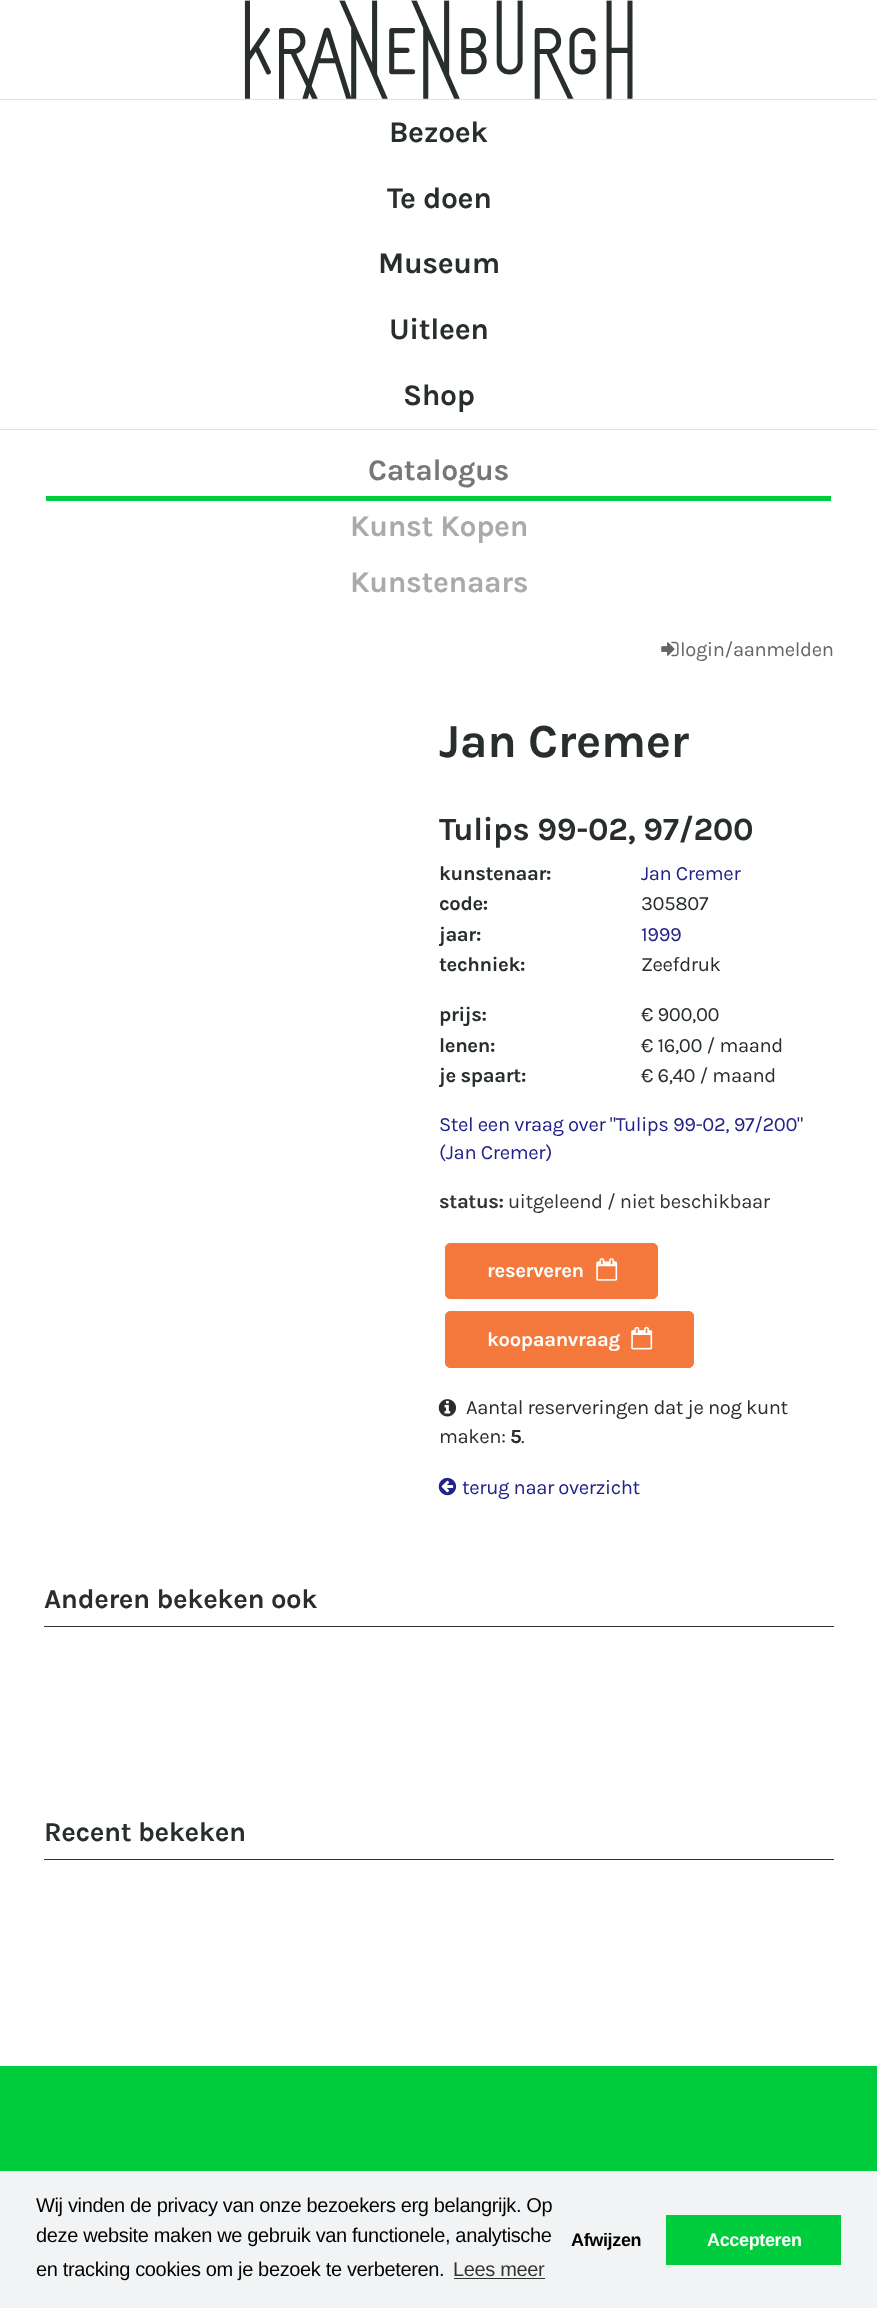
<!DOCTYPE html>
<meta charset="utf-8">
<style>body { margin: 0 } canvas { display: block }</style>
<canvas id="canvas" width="877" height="2308"></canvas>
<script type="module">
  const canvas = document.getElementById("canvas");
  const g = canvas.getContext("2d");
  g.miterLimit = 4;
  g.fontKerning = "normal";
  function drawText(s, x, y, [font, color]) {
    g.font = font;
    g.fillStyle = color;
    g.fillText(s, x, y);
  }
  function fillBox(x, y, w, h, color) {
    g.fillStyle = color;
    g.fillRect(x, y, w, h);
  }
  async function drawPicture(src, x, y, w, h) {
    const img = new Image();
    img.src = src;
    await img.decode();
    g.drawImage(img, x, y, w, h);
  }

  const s1 = ["bold 30px Karla", "#282D2D"];
  const s2 = ["bold 30px Karla", "#777777"];
  const s3 = ["bold 30px Karla", "#AAAAAA"];
  const s4 = ["20.2px Karla", "#666666"];
  const s5 = ["bold 47.5px Karla", "#282D2D"];
  const s6 = ["bold 32.5px Karla", "#282D2D"];
  const s7 = ["bold 20.2px Karla", "#282D2D"];
  const s8 = ["20.2px Karla", "#222288"];
  const s9 = ["20.2px Karla", "#282D2D"];
  const s10 = ["bold 20.2px Karla", "#333333"];
  const s11 = ["20.2px Karla", "#333333"];
  const s12 = ["bold 20.2px Karla", "#FFFFFF"];
  const s13 = ["bold 27.5px Karla", "#282D2D"];
  const s14 = ["20px Liberation Sans", "#000000"];
  const s15 = ["20px Liberation Sans", "#333333"];
  const s16 = ["bold 18px Liberation Sans", "#000000"];
  const s17 = ["bold 18px Liberation Sans", "#FFFFFF"];

  fillBox(0, 0, 877, 2308, "#FFFFFF");
  await drawPicture("pic1.png", 244, 0, 389, 99);
  fillBox(0, 99, 877, 1, "#DDE1E3");
  fillBox(0, 429, 877, 1, "#DDE1E3");
  g.letterSpacing = "-0.35px";
  drawText("Bezoek", 389, 142, s1);
  drawText("Te doen", 387, 208, s1);
  drawText("Museum", 378, 273, s1);
  drawText("Uitleen", 389, 339, s1);
  drawText("Shop", 403, 405, s1);
  fillBox(46, 496, 785, 5, "#00CD3E");
  drawText("Catalogus", 368, 480, s2);
  drawText("Kunst Kopen", 350, 536, s3);
  drawText("Kunstenaars", 350, 592, s3);
  await drawPicture("pic2.png", 661, 641, 18, 16);
  drawText("login/aanmelden", 680, 656, s4);
  drawText("Jan Cremer", 439, 757, s5);
  drawText("Tulips 99-02, 97/200", 439, 840, s6);
  drawText("kunstenaar:", 439, 880, s7);
  drawText("Jan Cremer", 641, 880, s8);
  drawText("code:", 439, 910, s7);
  drawText("305807", 641, 910, s9);
  g.save();
  g.beginPath();
  g.rect(439, 859, 395, 121);
  g.clip();
  drawText("jaar:", 439, 941, s7);
  g.restore();
  drawText("1999", 641, 941, s8);
  drawText("techniek:", 439, 971, s7);
  drawText("Zeefdruk", 641, 971, s9);
  drawText("prijs:", 439, 1021, s7);
  drawText("€ 900,00", 641, 1021, s9);
  drawText("lenen:", 439, 1052, s7);
  drawText("€ 16,00 / maand", 641, 1052, s9);
  g.save();
  g.beginPath();
  g.rect(439, 1000, 395, 91);
  g.clip();
  drawText("je spaart:", 439, 1082, s7);
  g.restore();
  drawText("€ 6,40 / maand", 641, 1082, s9);
  drawText("Stel een vraag over \"Tulips 99-02, 97/200\"", 439, 1131, s8);
  drawText("(Jan Cremer)", 439, 1159, s8);
  drawText("status:", 439, 1208, s10);
  drawText("uitgeleend / niet beschikbaar", 508, 1208, s11);
  g.fillStyle = "#F5783C";
  g.beginPath();
  g.roundRect(445.5, 1243.5, 212, 55, 4.5);
  g.fill();
  g.strokeStyle = "#F5783C";
  g.stroke();
  drawText("reserveren", 487, 1277, s12);
  await drawPicture("pic3.png", 596, 1258, 22, 23);
  g.fillStyle = "#F5783C";
  g.beginPath();
  g.roundRect(445.5, 1311.5, 248, 56, 4.5);
  g.fill();
  g.stroke();
  drawText("koopaanvraag", 487, 1346, s12);
  await drawPicture("pic4.png", 631, 1326, 22, 24);
  await drawPicture("pic5.png", 438, 1399, 19, 18);
  drawText("Aantal reserveringen dat je nog kunt", 466, 1414, s9);
  drawText("maken:", 439, 1443, s9);
  drawText("5", 510, 1443, s7);
  drawText(".", 521, 1443, s9);
  await drawPicture("pic6.png", 438, 1477, 19, 19);
  drawText("terug naar overzicht", 462, 1494, s8);
  fillBox(44, 1626, 790, 1, "#333333");
  drawText("Anderen bekeken ook", 44, 1608, s13);
  fillBox(44, 1859, 790, 1, "#333333");
  drawText("Recent bekeken", 44, 1841, s13);
  fillBox(0, 2066, 877, 105, "#00CD3E");
  fillBox(0, 2171, 877, 137, "#F2F3F4");
  drawText("Wij vinden de privacy van onze bezoekers erg belangrijk. Op", 36, 2212, s14);
  drawText("deze website maken we gebruik van functionele, analytische", 36, 2242, s14);
  drawText("en tracking cookies om je bezoek te verbeteren.", 36, 2276, s14);
  drawText("Lees meer", 453, 2276, s15);
  fillBox(454, 2278, 91, 1, "#303131");
  drawText("Afwijzen", 571, 2246, s16);
  fillBox(666, 2215, 175, 50, "#00CD3E");
  drawText("Accepteren", 707, 2246, s17);
</script>
